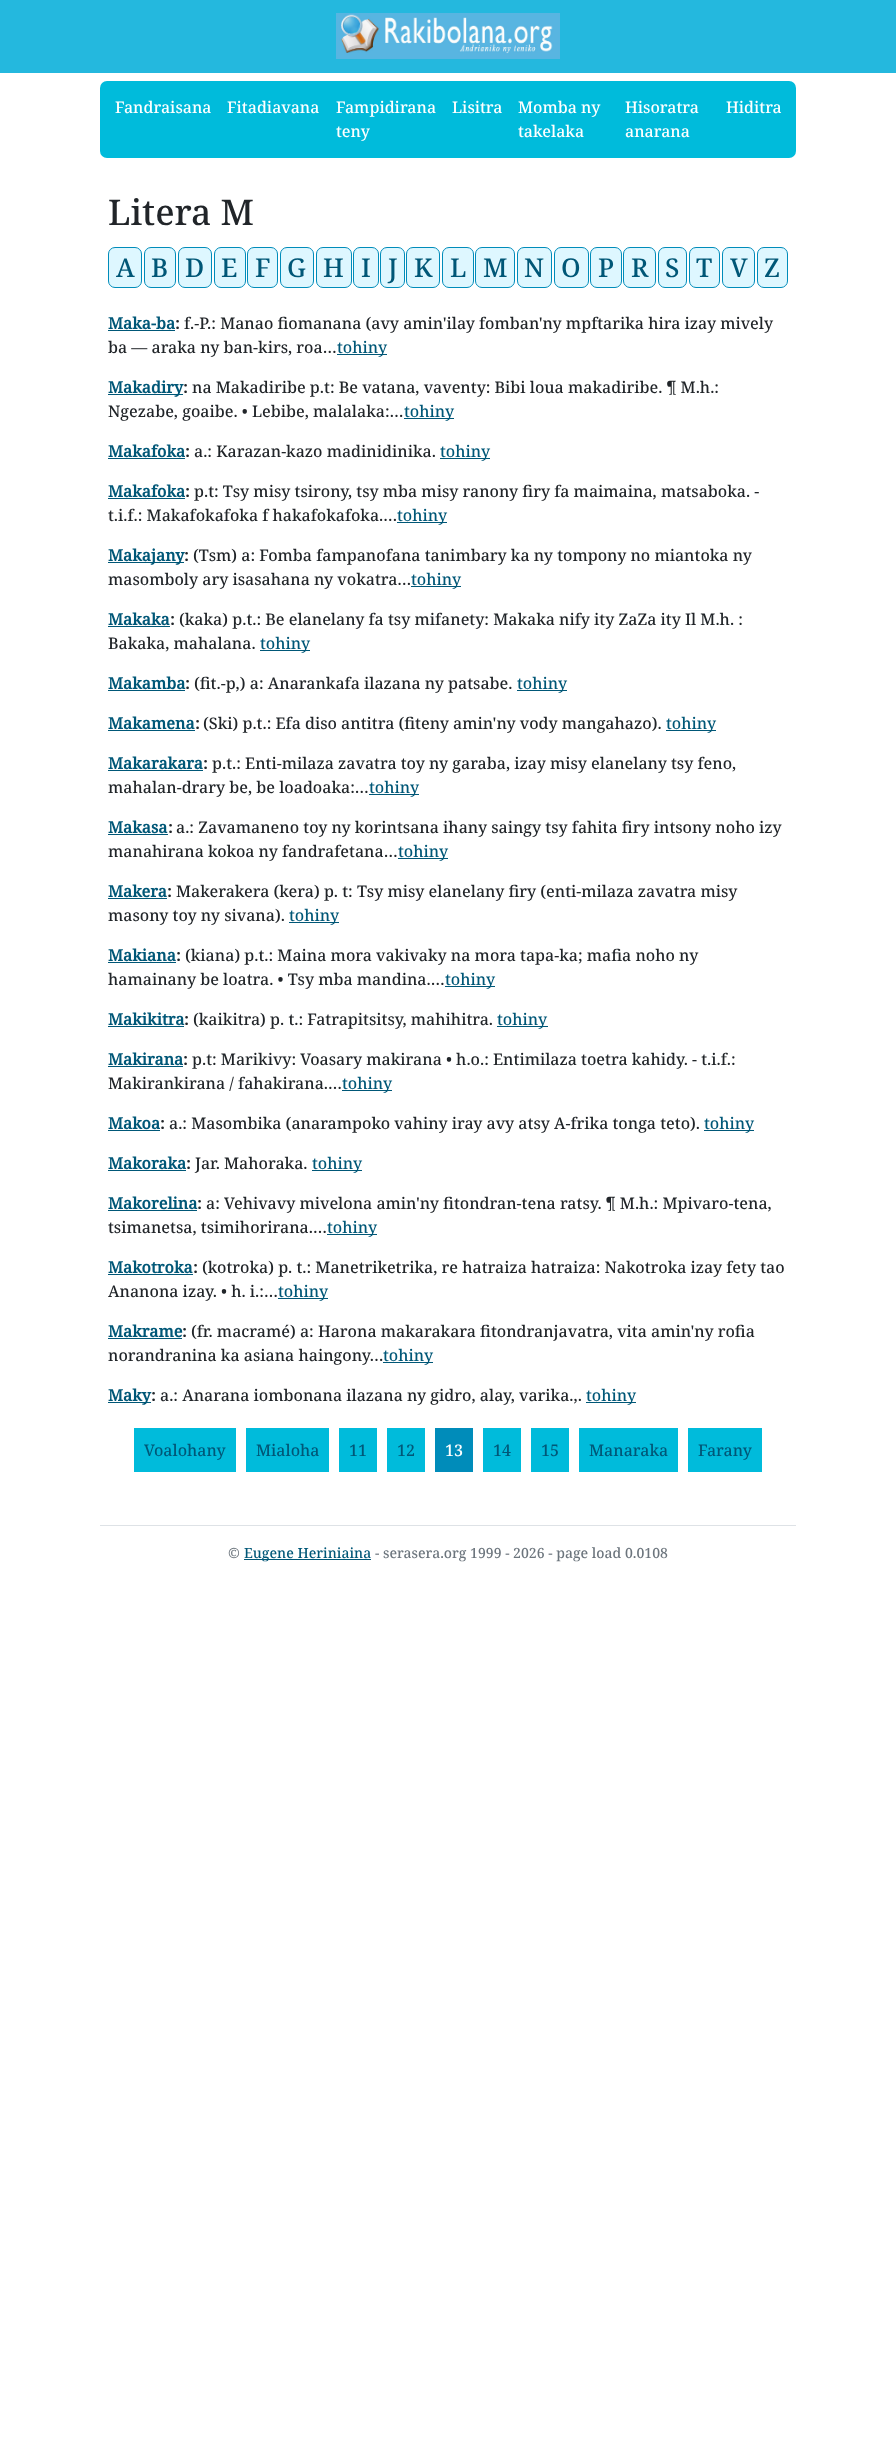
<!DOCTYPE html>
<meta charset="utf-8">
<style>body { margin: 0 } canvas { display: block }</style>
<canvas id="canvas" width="896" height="2456"></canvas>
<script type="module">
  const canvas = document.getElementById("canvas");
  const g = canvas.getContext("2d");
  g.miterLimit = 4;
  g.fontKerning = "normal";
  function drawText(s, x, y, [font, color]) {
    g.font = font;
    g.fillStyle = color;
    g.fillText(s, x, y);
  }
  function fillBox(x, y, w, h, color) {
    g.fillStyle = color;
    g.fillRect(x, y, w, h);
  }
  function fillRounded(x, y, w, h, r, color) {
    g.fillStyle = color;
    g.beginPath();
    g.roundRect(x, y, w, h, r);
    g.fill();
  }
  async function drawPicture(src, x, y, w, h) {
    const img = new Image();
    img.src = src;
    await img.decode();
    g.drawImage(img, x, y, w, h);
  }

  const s1 = ["500 16px Noto Serif", "#FFFFFF"];
  const s2 = ["500 35.5px Noto Serif", "#212529"];
  const s3 = ["500 26px Noto Serif", "#005777"];
  const s4 = ["bold 16px Noto Serif", "#005777"];
  const s5 = ["bold 16px Noto Serif", "#212529"];
  const s6 = ["500 16px Noto Serif", "#212529"];
  const s7 = ["500 16px Noto Serif", "#005777"];
  const s8 = ["500 14px Noto Serif", "#6C757D"];
  const s9 = ["500 14px Noto Serif", "#005777"];

  fillBox(0, 0, 896, 2456, "#FFFFFF");
  fillBox(0, 0, 896, 73, "#24B8DE");
  await drawPicture("pic1.png", 336, 13, 224, 46);
  fillRounded(100, 81, 696, 77, 7, "#00BBDB");
  drawText("Fandraisana", 115, 113, s1);
  drawText("Fitadiavana", 227, 113, s1);
  drawText("Fampidirana", 336, 113, s1);
  drawText("teny", 336, 137, s1);
  drawText("Lisitra", 452, 113, s1);
  drawText("Momba ny", 518, 113, s1);
  drawText("takelaka", 518, 137, s1);
  drawText("Hisoratra", 625, 113, s1);
  drawText("anarana", 625, 137, s1);
  drawText("Hiditra", 726, 113, s1);
  drawText("Litera M", 108, 225, s2);
  g.fillStyle = "#DEF7FF";
  g.beginPath();
  g.roundRect(108.5, 247.5, 33, 40, 6.5);
  g.fill();
  g.strokeStyle = "#008CBA";
  g.stroke();
  drawText("A", 116, 277, s3);
  g.fillStyle = "#DEF7FF";
  g.beginPath();
  g.roundRect(144.5, 247.5, 31, 40, 6.5);
  g.fill();
  g.stroke();
  drawText("B", 151, 277, s3);
  g.fillStyle = "#DEF7FF";
  g.beginPath();
  g.roundRect(178.5, 247.5, 33, 40, 6.5);
  g.fill();
  g.stroke();
  drawText("D", 185, 277, s3);
  g.fillStyle = "#DEF7FF";
  g.beginPath();
  g.roundRect(214.5, 247.5, 31, 40, 6.5);
  g.fill();
  g.stroke();
  drawText("E", 221, 277, s3);
  g.fillStyle = "#DEF7FF";
  g.beginPath();
  g.roundRect(247.5, 247.5, 30, 40, 6.5);
  g.fill();
  g.stroke();
  drawText("F", 255, 277, s3);
  g.fillStyle = "#DEF7FF";
  g.beginPath();
  g.roundRect(280.5, 247.5, 33, 40, 6.5);
  g.fill();
  g.stroke();
  drawText("G", 287, 277, s3);
  g.fillStyle = "#DEF7FF";
  g.beginPath();
  g.roundRect(316.5, 247.5, 35, 40, 6.5);
  g.fill();
  g.stroke();
  drawText("H", 323, 277, s3);
  g.fillStyle = "#DEF7FF";
  g.beginPath();
  g.roundRect(353.5, 247.5, 25, 40, 6.5);
  g.fill();
  g.stroke();
  drawText("I", 361, 277, s3);
  g.fillStyle = "#DEF7FF";
  g.beginPath();
  g.roundRect(380.5, 247.5, 24, 40, 6.5);
  g.fill();
  g.stroke();
  drawText("J", 388, 277, s3);
  g.fillStyle = "#DEF7FF";
  g.beginPath();
  g.roundRect(406.5, 247.5, 33, 40, 6.5);
  g.fill();
  g.stroke();
  drawText("K", 414, 277, s3);
  g.fillStyle = "#DEF7FF";
  g.beginPath();
  g.roundRect(442.5, 247.5, 31, 40, 6.5);
  g.fill();
  g.stroke();
  drawText("L", 450, 277, s3);
  g.fillStyle = "#DEF7FF";
  g.beginPath();
  g.roundRect(475.5, 247.5, 39, 40, 6.5);
  g.fill();
  g.stroke();
  drawText("M", 483, 277, s3);
  g.fillStyle = "#DEF7FF";
  g.beginPath();
  g.roundRect(517.5, 247.5, 34, 40, 6.5);
  g.fill();
  g.stroke();
  drawText("N", 524, 277, s3);
  g.fillStyle = "#DEF7FF";
  g.beginPath();
  g.roundRect(554.5, 247.5, 34, 40, 6.5);
  g.fill();
  g.stroke();
  drawText("O", 561, 277, s3);
  g.fillStyle = "#DEF7FF";
  g.beginPath();
  g.roundRect(590.5, 247.5, 31, 40, 6.5);
  g.fill();
  g.stroke();
  drawText("P", 598, 277, s3);
  g.fillStyle = "#DEF7FF";
  g.beginPath();
  g.roundRect(623.5, 247.5, 32, 40, 6.5);
  g.fill();
  g.stroke();
  drawText("R", 631, 277, s3);
  g.fillStyle = "#DEF7FF";
  g.beginPath();
  g.roundRect(658.5, 247.5, 28, 40, 6.5);
  g.fill();
  g.stroke();
  drawText("S", 665, 277, s3);
  g.fillStyle = "#DEF7FF";
  g.beginPath();
  g.roundRect(689.5, 247.5, 30, 40, 6.5);
  g.fill();
  g.stroke();
  drawText("T", 696, 277, s3);
  g.fillStyle = "#DEF7FF";
  g.beginPath();
  g.roundRect(722.5, 247.5, 32, 40, 6.5);
  g.fill();
  g.stroke();
  drawText("V", 730, 277, s3);
  g.fillStyle = "#DEF7FF";
  g.beginPath();
  g.roundRect(757.5, 247.5, 30, 40, 6.5);
  g.fill();
  g.stroke();
  drawText("Z", 764, 277, s3);
  drawText("Maka-ba", 108, 329, s4);
  drawText(":", 175, 329, s5);
  fillBox(108, 330, 67, 1, "#005777");
  drawText("f.-P.: Manao fiomanana (avy amin'ilay fomban'ny mpftarika hira izay mively", 184, 329, s6);
  drawText("ba — araka ny ban-kirs, roa…", 108, 353, s6);
  fillBox(337, 354, 50, 1, "#005777");
  drawText("tohiny", 337, 353, s7);
  fillBox(108, 394, 75, 1, "#005777");
  drawText("Makadiry", 108, 393, s4);
  drawText(":", 183, 393, s5);
  drawText("na Makadiribe p.t: Be vatana, vaventy: Bibi loua makadiribe. ¶ M.h.:", 192, 393, s6);
  drawText("Ngezabe, goaibe. • Lebibe, malalaka:…", 108, 417, s6);
  fillBox(404, 418, 50, 1, "#005777");
  drawText("tohiny", 404, 417, s7);
  drawText("Makafoka", 108, 457, s4);
  drawText(":", 185, 457, s5);
  fillBox(108, 458, 77, 1, "#005777");
  drawText("a.: Karazan-kazo madinidinika.", 194, 457, s6);
  fillBox(440, 458, 50, 1, "#005777");
  drawText("tohiny", 440, 457, s7);
  drawText("Makafoka", 108, 497, s4);
  drawText(":", 185, 497, s5);
  fillBox(108, 498, 77, 1, "#005777");
  drawText("p.t: Tsy misy tsirony, tsy mba misy ranony firy fa maimaina, matsaboka. -", 194, 497, s6);
  drawText("t.i.f.: Makafokafoka f hakafokafoka.…", 108, 521, s6);
  fillBox(397, 522, 50, 1, "#005777");
  drawText("tohiny", 397, 521, s7);
  fillBox(108, 562, 76, 1, "#005777");
  drawText("Makajany", 108, 561, s4);
  drawText(":", 184, 561, s5);
  drawText("(Tsm) a: Fomba fampanofana tanimbary ka ny tompony no miantoka ny", 193, 561, s6);
  drawText("masomboly ary isasahana ny vokatra…", 108, 585, s6);
  fillBox(411, 586, 50, 1, "#005777");
  drawText("tohiny", 411, 585, s7);
  drawText("Makaka", 108, 625, s4);
  drawText(":", 170, 625, s5);
  fillBox(108, 626, 62, 1, "#005777");
  drawText("(kaka) p.t.: Be elanelany fa tsy mifanety: Makaka nify ity ZaZa ity Il M.h. :", 179, 625, s6);
  drawText("Bakaka, mahalana.", 108, 649, s6);
  fillBox(260, 650, 50, 1, "#005777");
  drawText("tohiny", 260, 649, s7);
  drawText("Makamba", 108, 689, s4);
  drawText(":", 185, 689, s5);
  fillBox(108, 690, 77, 1, "#005777");
  drawText("(fit.-p,) a: Anarankafa ilazana ny patsabe.", 194, 689, s6);
  fillBox(517, 690, 50, 1, "#005777");
  drawText("tohiny", 517, 689, s7);
  drawText("Makamena", 108, 729, s4);
  drawText(":", 195, 729, s5);
  fillBox(108, 730, 87, 1, "#005777");
  drawText("(Ski) p.t.: Efa diso antitra (fiteny amin'ny vody mangahazo).", 203, 729, s6);
  fillBox(666, 730, 50, 1, "#005777");
  drawText("tohiny", 666, 729, s7);
  drawText("Makarakara", 108, 769, s4);
  drawText(":", 203, 769, s5);
  fillBox(108, 770, 95, 1, "#005777");
  drawText("p.t.: Enti-milaza zavatra toy ny garaba, izay misy elanelany tsy feno,", 212, 769, s6);
  drawText("mahalan-drary be, be loadoaka:…", 108, 793, s6);
  fillBox(369, 794, 50, 1, "#005777");
  drawText("tohiny", 369, 793, s7);
  drawText("Makasa", 108, 833, s4);
  drawText(":", 168, 833, s5);
  fillBox(108, 834, 60, 1, "#005777");
  drawText("a.: Zavamaneno toy ny korintsana ihany saingy tsy fahita firy intsony noho izy", 176, 833, s6);
  drawText("manahirana kokoa ny fandrafetana…", 108, 857, s6);
  fillBox(398, 858, 50, 1, "#005777");
  drawText("tohiny", 398, 857, s7);
  drawText("Makera", 108, 897, s4);
  drawText(":", 167, 897, s5);
  fillBox(108, 898, 59, 1, "#005777");
  drawText("Makerakera (kera) p. t: Tsy misy elanelany firy (enti-milaza zavatra misy", 176, 897, s6);
  drawText("masony toy ny sivana).", 108, 921, s6);
  fillBox(289, 922, 50, 1, "#005777");
  drawText("tohiny", 289, 921, s7);
  drawText("Makiana", 108, 961, s4);
  drawText(":", 176, 961, s5);
  fillBox(108, 962, 68, 1, "#005777");
  drawText("(kiana) p.t.: Maina mora vakivaky na mora tapa-ka; mafia noho ny", 185, 961, s6);
  drawText("hamainany be loatra. • Tsy mba mandina.…", 108, 985, s6);
  fillBox(445, 986, 50, 1, "#005777");
  drawText("tohiny", 445, 985, s7);
  drawText("Makikitra", 108, 1025, s4);
  drawText(":", 184, 1025, s5);
  fillBox(108, 1026, 76, 1, "#005777");
  drawText("(kaikitra) p. t.: Fatrapitsitsy, mahihitra.", 193, 1025, s6);
  fillBox(497, 1026, 51, 1, "#005777");
  drawText("tohiny", 497, 1025, s7);
  drawText("Makirana", 108, 1065, s4);
  drawText(":", 183, 1065, s5);
  fillBox(108, 1066, 75, 1, "#005777");
  drawText("p.t: Marikivy: Voasary makirana • h.o.: Entimilaza toetra kahidy. - t.i.f.:", 192, 1065, s6);
  drawText("Makirankirana / fahakirana.…", 108, 1089, s6);
  fillBox(342, 1090, 50, 1, "#005777");
  drawText("tohiny", 342, 1089, s7);
  drawText("Makoa", 108, 1129, s4);
  drawText(":", 160, 1129, s5);
  fillBox(108, 1130, 52, 1, "#005777");
  drawText("a.: Masombika (anarampoko vahiny iray avy atsy A-frika tonga teto).", 169, 1129, s6);
  fillBox(704, 1130, 50, 1, "#005777");
  drawText("tohiny", 704, 1129, s7);
  drawText("Makoraka", 108, 1169, s4);
  drawText(":", 186, 1169, s5);
  fillBox(108, 1170, 78, 1, "#005777");
  drawText("Jar. Mahoraka.", 195, 1169, s6);
  fillBox(312, 1170, 50, 1, "#005777");
  drawText("tohiny", 312, 1169, s7);
  drawText("Makorelina", 108, 1209, s4);
  drawText(":", 197, 1209, s5);
  fillBox(108, 1210, 89, 1, "#005777");
  drawText("a: Vehivavy mivelona amin'ny fitondran-tena ratsy. ¶ M.h.: Mpivaro-tena,", 206, 1209, s6);
  drawText("tsimanetsa, tsimihorirana.…", 108, 1233, s6);
  fillBox(327, 1234, 50, 1, "#005777");
  drawText("tohiny", 327, 1233, s7);
  drawText("Makotroka", 108, 1273, s4);
  drawText(":", 193, 1273, s5);
  fillBox(108, 1274, 85, 1, "#005777");
  drawText("(kotroka) p. t.: Manetriketrika, re hatraiza hatraiza: Nakotroka izay fety tao", 202, 1273, s6);
  drawText("Ananona izay. • h. i.:…", 108, 1297, s6);
  fillBox(278, 1298, 50, 1, "#005777");
  drawText("tohiny", 278, 1297, s7);
  drawText("Makrame", 108, 1337, s4);
  drawText(":", 182, 1337, s5);
  fillBox(108, 1338, 74, 1, "#005777");
  drawText("(fr. macramé) a: Harona makarakara fitondranjavatra, vita amin'ny rofia", 191, 1337, s6);
  drawText("norandranina ka asiana haingony…", 108, 1361, s6);
  fillBox(383, 1362, 50, 1, "#005777");
  drawText("tohiny", 383, 1361, s7);
  fillBox(108, 1402, 43, 1, "#005777");
  drawText("Maky", 108, 1401, s4);
  drawText(":", 151, 1401, s5);
  drawText("a.: Anarana iombonana ilazana ny gidro, alay, varika.,.", 160, 1401, s6);
  fillBox(586, 1402, 50, 1, "#005777");
  drawText("tohiny", 586, 1401, s7);
  fillBox(134, 1428, 102, 44, "#00BBDB");
  drawText("Voalohany", 144, 1456, s7);
  fillBox(246, 1428, 83, 44, "#00BBDB");
  drawText("Mialoha", 256, 1456, s7);
  fillBox(339, 1428, 38, 44, "#00BBDB");
  drawText("11", 349, 1456, s7);
  fillBox(387, 1428, 38, 44, "#00BBDB");
  drawText("12", 397, 1456, s7);
  fillBox(435, 1428, 38, 44, "#008CBA");
  drawText("13", 445, 1456, s1);
  fillBox(483, 1428, 38, 44, "#00BBDB");
  drawText("14", 493, 1456, s7);
  fillBox(531, 1428, 38, 44, "#00BBDB");
  drawText("15", 541, 1456, s7);
  fillBox(579, 1428, 99, 44, "#00BBDB");
  drawText("Manaraka", 589, 1456, s7);
  fillBox(688, 1428, 74, 44, "#00BBDB");
  drawText("Farany", 698, 1456, s7);
  fillBox(100, 1525, 696, 1, "#DEE2E6");
  drawText("©", 228, 1558, s8);
  fillBox(244, 1559, 127, 1, "#005777");
  drawText("Eugene Heriniaina", 244, 1558, s9);
  drawText("- serasera.org 1999 - 2026 - page load 0.0108", 375, 1558, s8);
</script>
